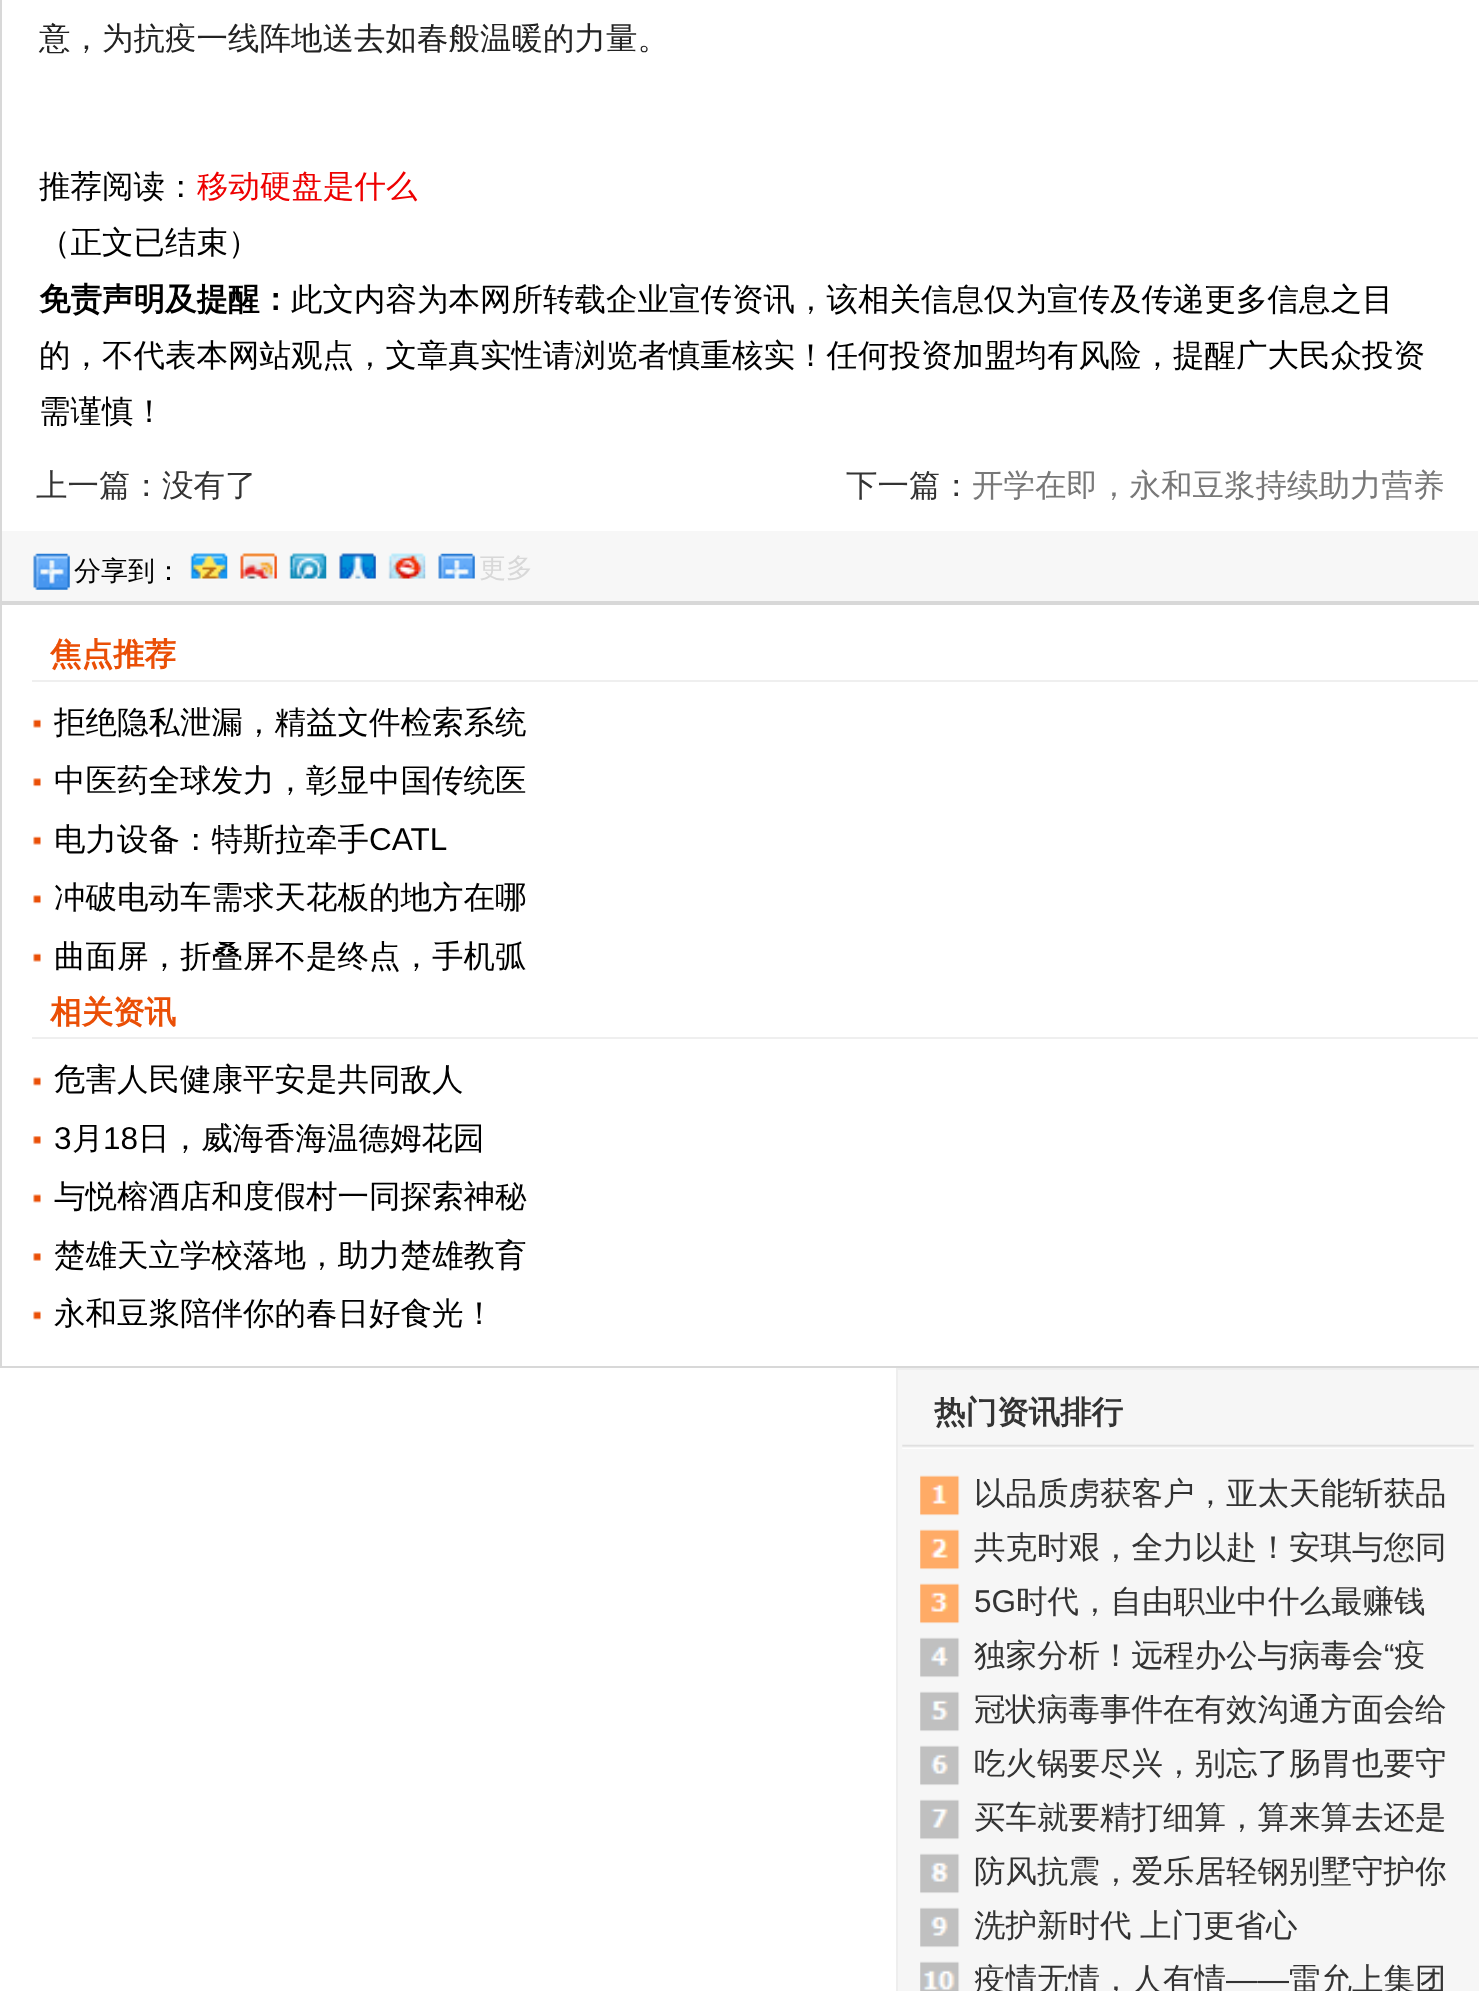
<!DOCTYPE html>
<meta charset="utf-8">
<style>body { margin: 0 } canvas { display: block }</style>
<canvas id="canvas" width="1479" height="1991"></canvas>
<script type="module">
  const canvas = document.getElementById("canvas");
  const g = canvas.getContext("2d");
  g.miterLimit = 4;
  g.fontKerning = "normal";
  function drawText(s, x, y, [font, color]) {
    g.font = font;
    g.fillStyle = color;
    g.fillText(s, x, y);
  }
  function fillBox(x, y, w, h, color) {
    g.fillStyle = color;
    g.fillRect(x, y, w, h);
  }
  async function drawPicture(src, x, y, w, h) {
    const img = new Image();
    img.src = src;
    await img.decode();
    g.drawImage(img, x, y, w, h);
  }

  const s1 = ["500 31.5px WenQuanYi Zen Hei", "#222222"];
  const s2 = ["500 31.5px WenQuanYi Zen Hei", "#000000"];
  const s3 = ["500 31.5px WenQuanYi Zen Hei", "#EE0000"];
  const s4 = ["bold 31.5px WenQuanYi Zen Hei", "#000000"];
  const s5 = ["500 31.5px WenQuanYi Zen Hei", "#333333"];
  const s6 = ["500 31.5px WenQuanYi Zen Hei", "#787878"];
  const s7 = ["500 27px WenQuanYi Zen Hei", "#000000"];
  const s8 = ["500 27px WenQuanYi Zen Hei", "#D8D8D8"];
  const s9 = ["bold 31.5px WenQuanYi Zen Hei", "#EA4F06"];
  const s10 = ["31.5px Liberation Sans", "#000000"];
  const s11 = ["bold 31.5px WenQuanYi Zen Hei", "#333333"];
  const s12 = ["31.5px Liberation Sans", "#333333"];

  fillBox(0, 0, 1479, 1991, "#FFFFFF");
  g.strokeStyle = "#D8D8D8";
  g.lineWidth = 2;
  g.strokeRect(1, -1, 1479, 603);
  drawText("意，为抗疫一线阵地送去如春般温暖的力量。", 39, 49, s1);
  drawText("推荐阅读：", 39, 197, s2);
  drawText("移动硬盘是什么", 197, 197, s3);
  drawText("（正文已结束）", 39, 253, s2);
  drawText("免责声明及提醒：", 39, 310, s4);
  drawText("此文内容为本网所转载企业宣传资讯，该相关信息仅为宣传及传递更多信息之目", 291, 310, s2);
  drawText("的，不代表本网站观点，文章真实性请浏览者慎重核实！任何投资加盟均有风险，提醒广大民众投资", 39, 366, s2);
  drawText("需谨慎！", 39, 422, s2);
  drawText("上一篇：没有了", 36, 496, s5);
  drawText("下一篇：", 846, 496, s5);
  drawText("开学在即，永和豆浆持续助力营养", 972, 496, s6);
  fillBox(2, 531, 1476, 70, "#F7F7F7");
  await drawPicture("pic1.png", 33, 553, 37, 37);
  drawText("分享到：", 74, 580, s7);
  await drawPicture("pic2.png", 190, 553, 38, 26);
  await drawPicture("pic3.png", 240, 553, 37, 26);
  await drawPicture("pic4.png", 289, 553, 38, 26);
  await drawPicture("pic5.png", 339, 553, 37, 26);
  await drawPicture("pic6.png", 388, 553, 38, 26);
  await drawPicture("pic7.png", 438, 553, 37, 26);
  drawText("更多", 479, 577, s8);
  g.strokeRect(1, 604, 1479, 763);
  fillBox(32, 680, 1446, 2, "#EFEFEF");
  drawText("焦点推荐", 50, 665, s9);
  await drawPicture("pic8.png", 33, 719, 8, 9);
  drawText("拒绝隐私泄漏，精益文件检索系统", 54, 733, s2);
  await drawPicture("pic9.png", 33, 778, 8, 9);
  drawText("中医药全球发力，彰显中国传统医", 54, 791, s2);
  await drawPicture("pic8.png", 33, 836, 8, 9);
  drawText("电力设备：特斯拉牵手", 54, 850, s2);
  drawText("CATL", 369, 850, s10);
  await drawPicture("pic9.png", 33, 895, 8, 9);
  drawText("冲破电动车需求天花板的地方在哪", 54, 908, s2);
  await drawPicture("pic8.png", 33, 953, 8, 9);
  drawText("曲面屏，折叠屏不是终点，手机弧", 54, 967, s2);
  fillBox(32, 1037, 1446, 2, "#EFEFEF");
  drawText("相关资讯", 50, 1023, s9);
  await drawPicture("pic10.png", 33, 1077, 8, 9);
  drawText("危害人民健康平安是共同敌人", 54, 1090, s2);
  await drawPicture("pic11.png", 33, 1136, 8, 8);
  drawText("3", 54, 1149, s10);
  drawText("月", 72, 1149, s2);
  drawText("18", 103, 1149, s10);
  drawText("日，威海香海温德姆花园", 138, 1149, s2);
  await drawPicture("pic10.png", 33, 1194, 8, 9);
  drawText("与悦榕酒店和度假村一同探索神秘", 54, 1207, s2);
  await drawPicture("pic11.png", 33, 1253, 8, 8);
  drawText("楚雄天立学校落地，助力楚雄教育", 54, 1266, s2);
  await drawPicture("pic10.png", 33, 1311, 8, 9);
  drawText("永和豆浆陪伴你的春日好食光！", 54, 1324, s2);
  g.fillStyle = "#F6F6F6";
  g.beginPath();
  g.rect(897, 1369, 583, 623);
  g.fill();
  g.strokeStyle = "#EEEEEE";
  g.stroke();
  await drawPicture("pic12.png", 902, 1444, 572, 5);
  drawText("热门资讯排行", 934, 1423, s11);
  await drawPicture("pic13.png", 920, 1475, 40, 516);
  drawText("以品质虏获客户，亚太天能斩获品", 974, 1504, s5);
  drawText("共克时艰，全力以赴！安琪与您同", 974, 1558, s5);
  drawText("5G", 974, 1612, s12);
  drawText("时代，自由职业中什么最赚钱", 1016, 1612, s5);
  drawText("独家分析！远程办公与病毒会", 974, 1666, s5);
  drawText("“", 1384, 1666, s12);
  drawText("疫", 1394, 1666, s5);
  drawText("冠状病毒事件在有效沟通方面会给", 974, 1720, s5);
  drawText("吃火锅要尽兴，别忘了肠胃也要守", 974, 1774, s5);
  drawText("买车就要精打细算，算来算去还是", 974, 1828, s5);
  drawText("防风抗震，爱乐居轻钢别墅守护你", 974, 1882, s5);
  g.wordSpacing = "-1px";
  drawText("洗护新时代 上门更省心", 974, 1936, s5);
  g.wordSpacing = "0px";
  drawText("疫情无情，人有情", 974, 1990, s5);
  drawText("——", 1226, 1990, s12);
  drawText("雷允上集团", 1289, 1990, s5);
</script>
